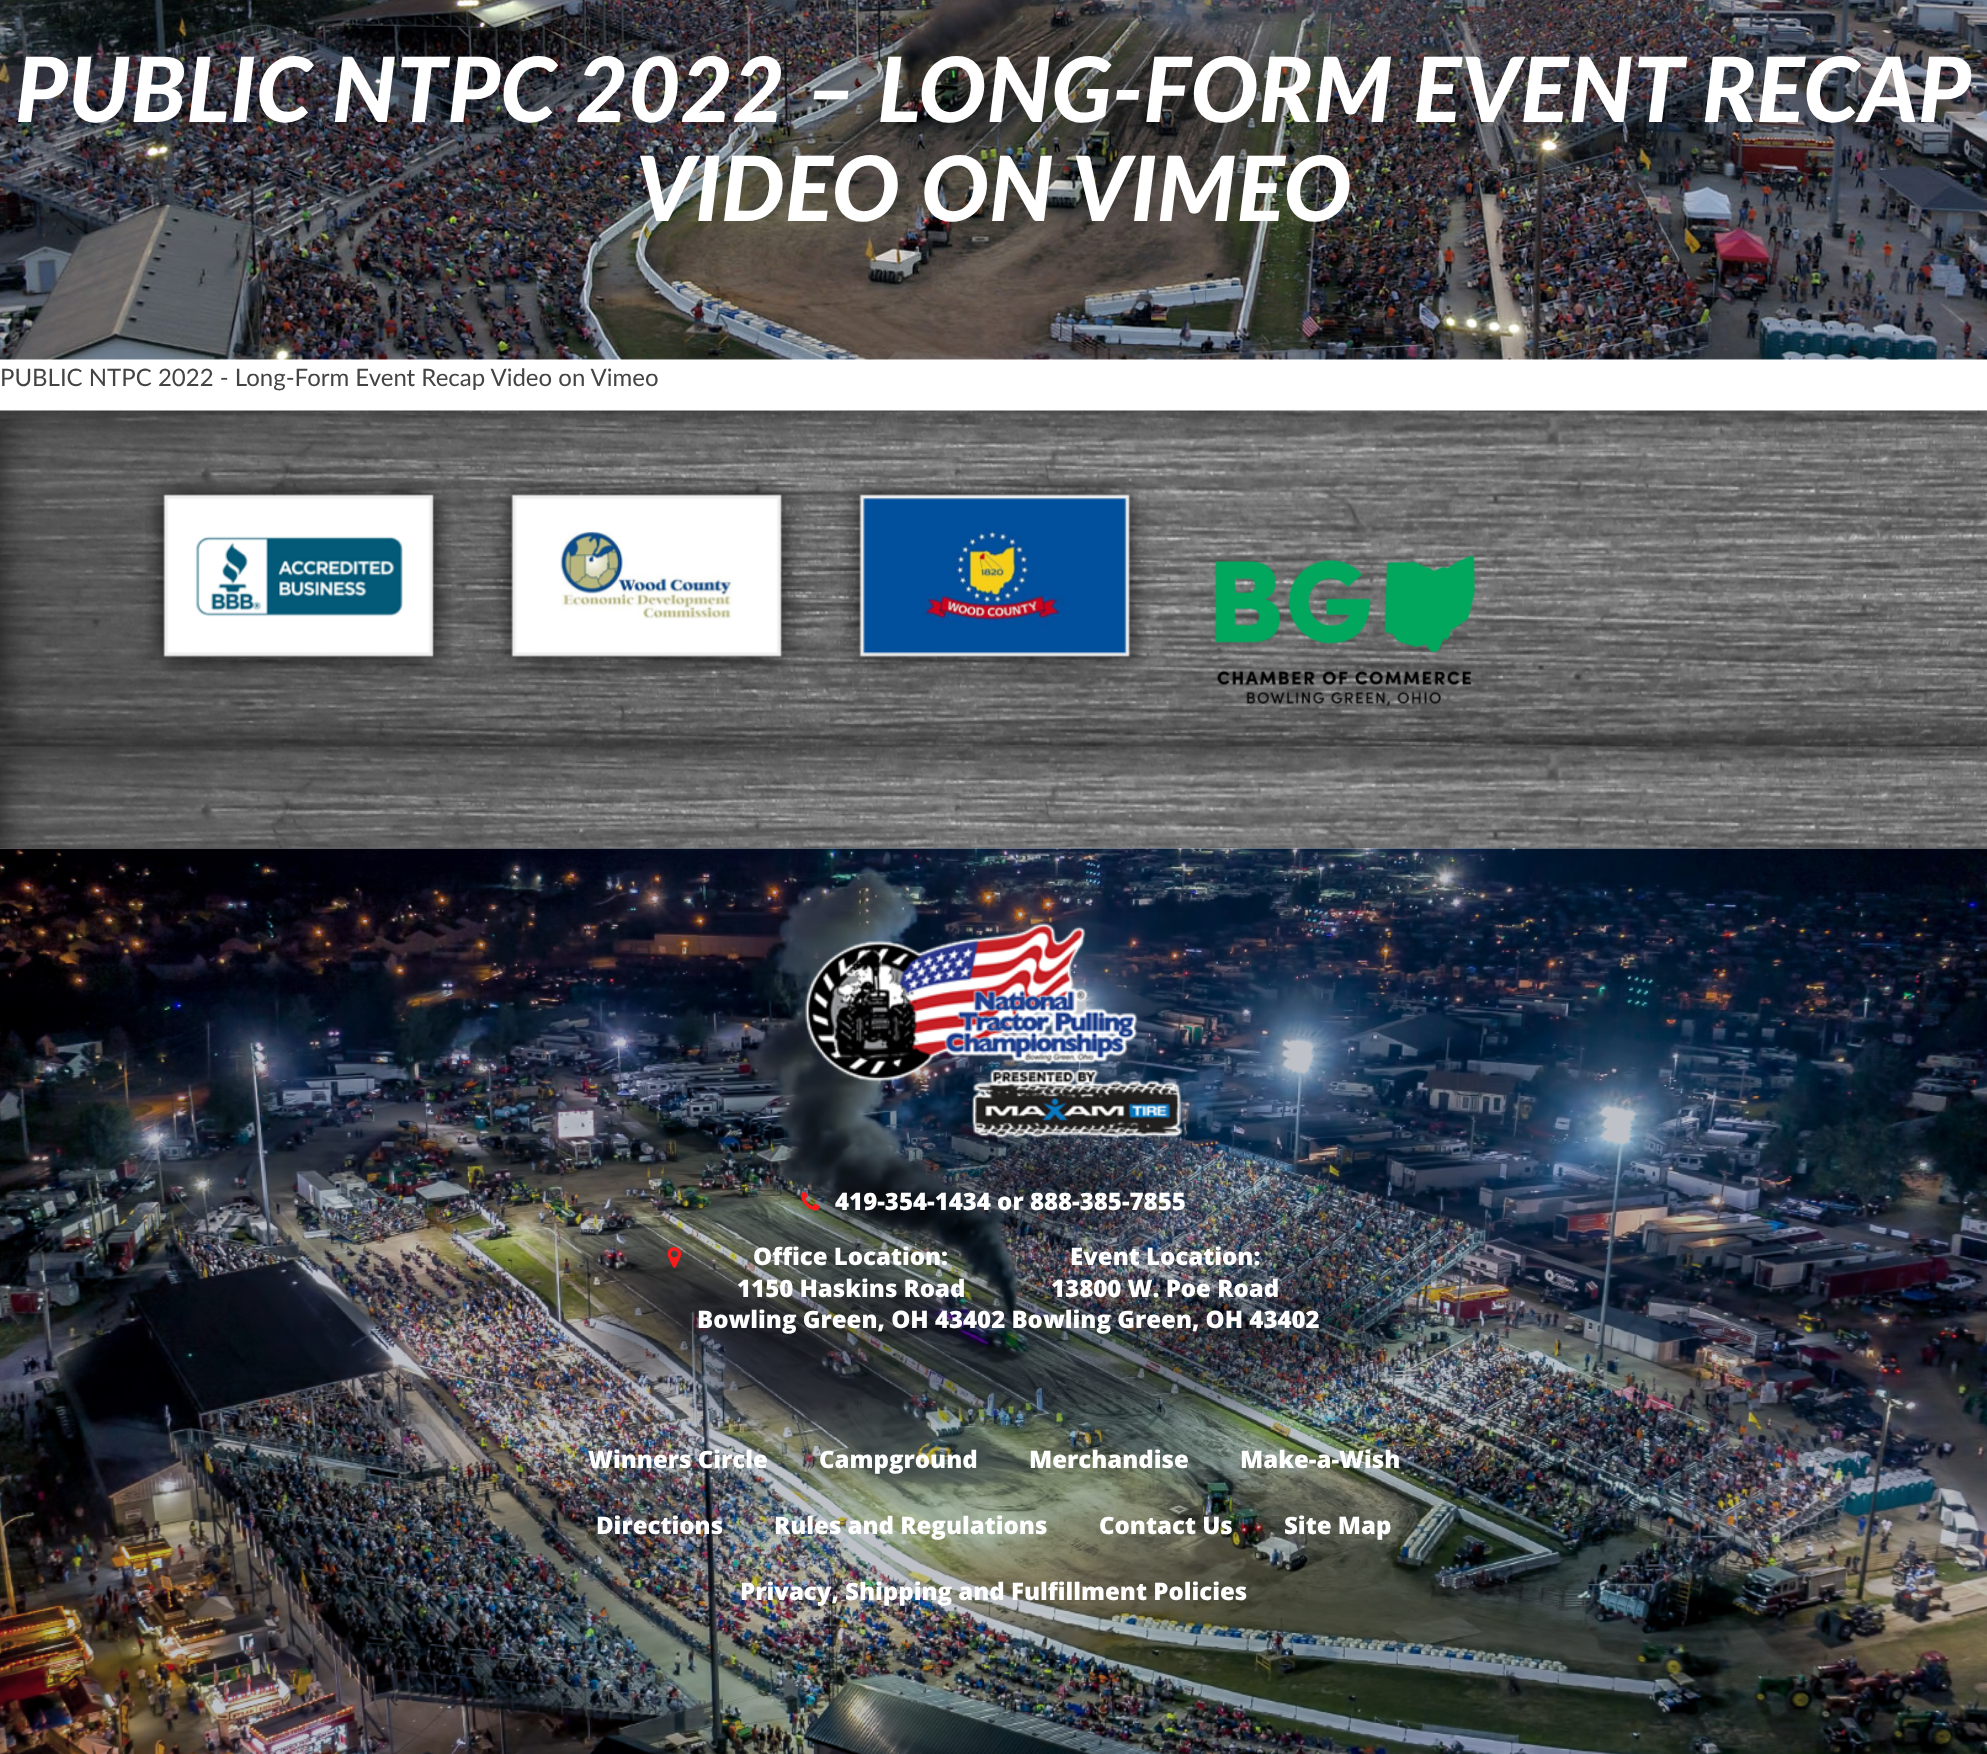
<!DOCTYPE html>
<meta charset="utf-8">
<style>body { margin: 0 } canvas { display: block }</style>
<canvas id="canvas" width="1987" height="1754"></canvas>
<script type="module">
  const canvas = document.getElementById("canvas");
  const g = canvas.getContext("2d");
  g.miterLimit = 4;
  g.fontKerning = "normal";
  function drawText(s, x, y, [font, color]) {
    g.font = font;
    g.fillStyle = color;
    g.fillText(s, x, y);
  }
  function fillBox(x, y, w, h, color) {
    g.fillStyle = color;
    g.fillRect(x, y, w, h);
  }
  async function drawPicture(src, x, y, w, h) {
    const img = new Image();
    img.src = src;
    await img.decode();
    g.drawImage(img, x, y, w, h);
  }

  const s1 = ["italic 900 90px Lato", "#FFFFFF"];
  const s2 = ["24px Lato", "#444444"];
  const s3 = ["800 24px Open Sans", "#FFFFFF"];

  fillBox(0, 0, 1987, 1754, "#FFFFFF");
  await drawPicture("pic1.png", 0, 0, 1987, 360);
  g.wordSpacing = "1px";
  drawText("PUBLIC NTPC 2022 – LONG-FORM EVENT RECAP", 15, 122, s1);
  g.wordSpacing = "2px";
  drawText("VIDEO ON VIMEO", 636, 221, s1);
  g.wordSpacing = "0px";
  drawText("PUBLIC NTPC 2022 - Long-Form Event Recap Video on Vimeo", 0, 386, s2);
  await drawPicture("pic2.png", 0, 410, 1987, 439);
  await drawPicture("pic3.png", 145, 475, 307, 200);
  await drawPicture("pic4.png", 492, 475, 309, 201);
  await drawPicture("pic5.png", 840, 475, 309, 200);
  await drawPicture("pic6.png", 1214, 555, 262, 151);
  await drawPicture("pic7.png", 0, 848, 1987, 906);
  await drawPicture("pic8.png", 805, 923, 379, 215);
  await drawPicture("pic9.png", 801, 1191, 19, 20);
  drawText("419-354-1434 or 888-385-7855", 835, 1210, s3);
  drawText("Office Location:", 753, 1265, s3);
  drawText("1150 Haskins Road", 737, 1297, s3);
  drawText("Bowling Green, OH 43402 Bowling Green, OH 43402", 697, 1328, s3);
  await drawPicture("pic10.png", 667, 1247, 15, 21);
  drawText("Event Location:", 1070, 1265, s3);
  drawText("13800 W. Poe Road", 1051, 1297, s3);
  drawText("Winners Circle", 588, 1468, s3);
  drawText("Campground", 819, 1468, s3);
  drawText("Merchandise", 1029, 1468, s3);
  drawText("Make-a-Wish", 1240, 1468, s3);
  drawText("Directions", 596, 1534, s3);
  drawText("Rules and Regulations", 774, 1534, s3);
  drawText("Contact Us", 1099, 1534, s3);
  drawText("Site Map", 1284, 1534, s3);
  drawText("Privacy, Shipping and Fulfillment Policies", 740, 1600, s3);
</script>
